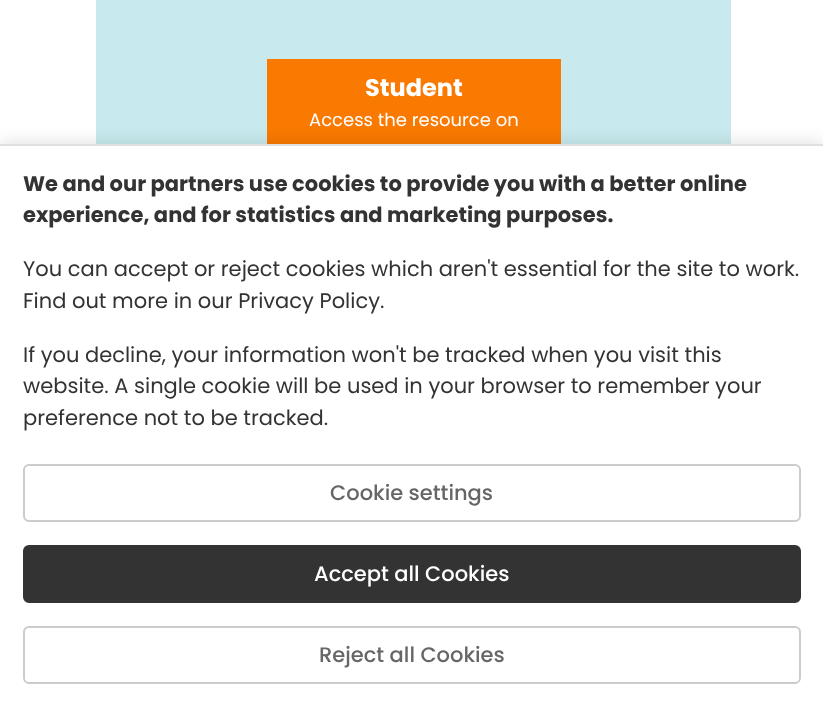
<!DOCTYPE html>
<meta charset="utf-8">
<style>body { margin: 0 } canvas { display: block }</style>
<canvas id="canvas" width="823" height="713"></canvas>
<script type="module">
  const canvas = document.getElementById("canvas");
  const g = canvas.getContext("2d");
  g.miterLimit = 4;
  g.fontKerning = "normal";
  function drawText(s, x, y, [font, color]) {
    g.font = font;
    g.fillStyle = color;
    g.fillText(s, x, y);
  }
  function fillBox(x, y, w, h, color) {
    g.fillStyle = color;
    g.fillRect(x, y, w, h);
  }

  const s1 = ["bold 24px Poppins", "#FFFFFF"];
  const s2 = ["18px Poppins", "#FFFFFF"];
  const s3 = ["bold 21px Poppins", "#333333"];
  const s4 = ["21px Poppins", "#333333"];
  const s5 = ["500 21px Poppins", "#666666"];
  const s6 = ["500 21px Poppins", "#FFFFFF"];

  fillBox(0, 0, 823, 713, "#FFFFFF");
  fillBox(96, 0, 635, 144, "#C8EAEE");
  fillBox(267, 59, 294, 85, "#FA7900");
  drawText("Student", 365, 96, s1);
  drawText("Access the resource on", 309, 126, s2);
  g.fillStyle = "rgba(0, 0, 0, 0.1)";
  g.filter = "blur(7.5px)";
  g.beginPath();
  g.rect(0, 141, 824, 570);
  g.fill();
  g.filter = "none";
  fillBox(0, 146, 823, 567, "#FFFFFF");
  fillBox(0, 144, 823, 2, "#E0E0E0");
  drawText("We and our partners use cookies to provide you with a better online", 23, 191, s3);
  drawText("experience, and for statistics and marketing purposes.", 23, 222, s3);
  drawText("You can accept or reject cookies which aren't essential for the site to work.", 23, 276, s4);
  drawText("Find out more in our Privacy Policy.", 23, 308, s4);
  drawText("If you decline, your information won't be tracked when you visit this", 23, 362, s4);
  drawText("website. A single cookie will be used in your browser to remember your", 23, 393, s4);
  drawText("preference not to be tracked.", 23, 425, s4);
  g.beginPath();
  g.roundRect(24, 465, 776, 56, 5);
  g.strokeStyle = "#CCCCCC";
  g.lineWidth = 2;
  g.stroke();
  drawText("Cookie settings", 330, 500, s5);
  g.fillStyle = "#333333";
  g.beginPath();
  g.roundRect(24, 546, 776, 56, 5);
  g.fill();
  g.strokeStyle = "#333333";
  g.stroke();
  drawText("Accept all Cookies", 314, 581, s6);
  g.beginPath();
  g.roundRect(24, 627, 776, 56, 5);
  g.strokeStyle = "#CCCCCC";
  g.stroke();
  drawText("Reject all Cookies", 319, 662, s5);
</script>
